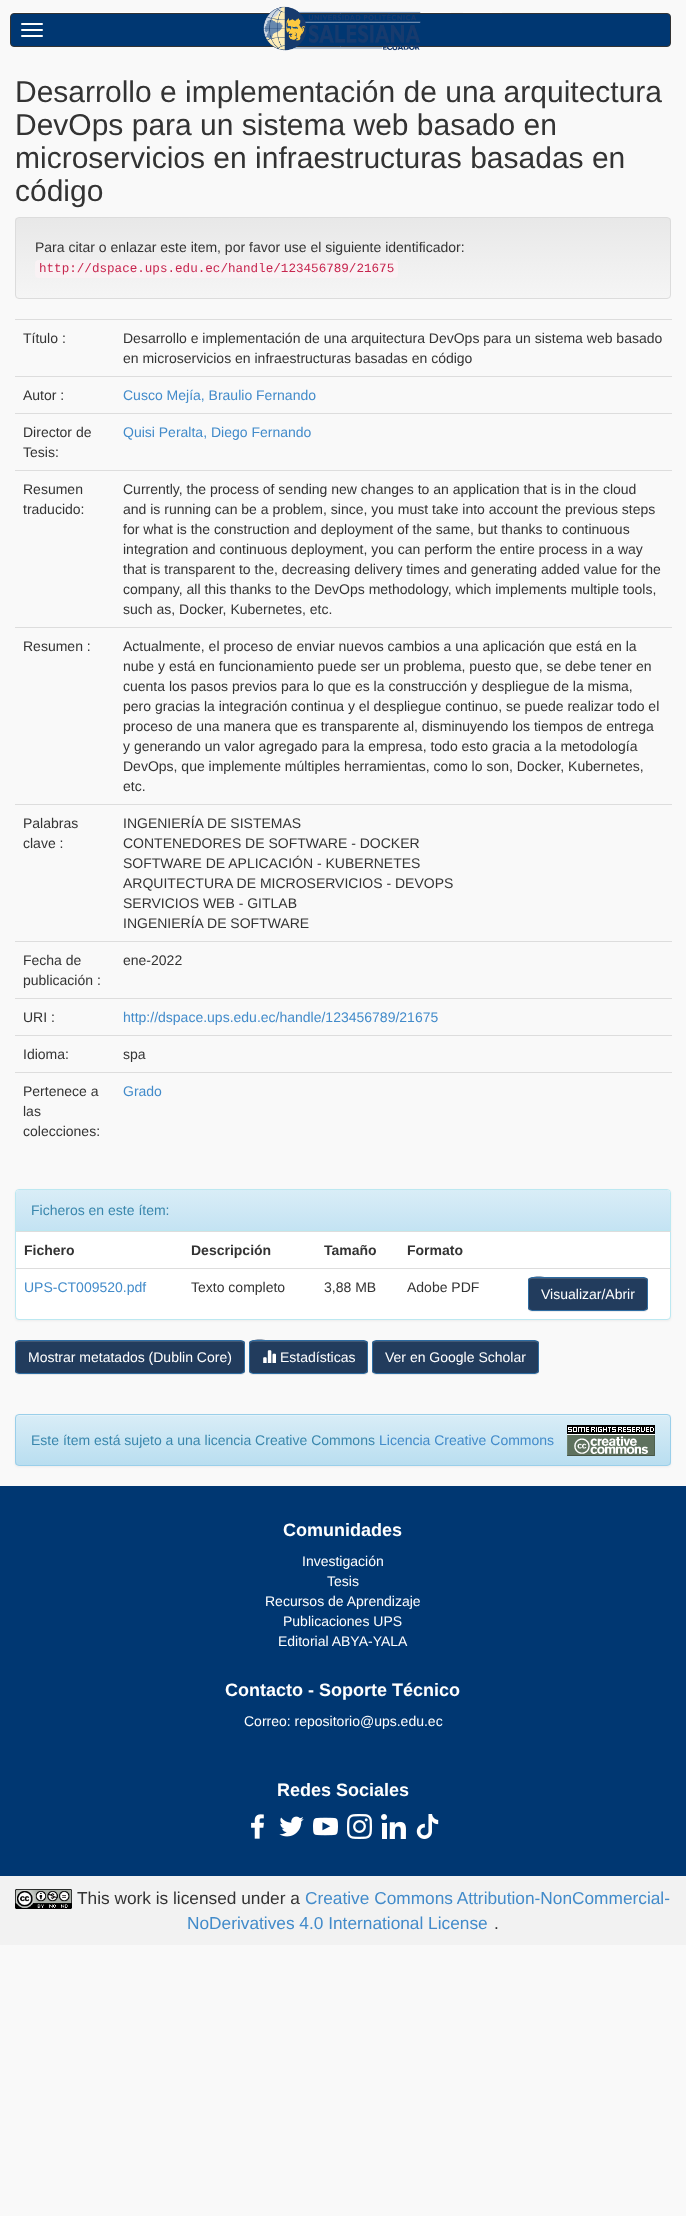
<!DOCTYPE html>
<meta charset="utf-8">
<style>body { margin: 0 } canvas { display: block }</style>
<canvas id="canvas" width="686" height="2216"></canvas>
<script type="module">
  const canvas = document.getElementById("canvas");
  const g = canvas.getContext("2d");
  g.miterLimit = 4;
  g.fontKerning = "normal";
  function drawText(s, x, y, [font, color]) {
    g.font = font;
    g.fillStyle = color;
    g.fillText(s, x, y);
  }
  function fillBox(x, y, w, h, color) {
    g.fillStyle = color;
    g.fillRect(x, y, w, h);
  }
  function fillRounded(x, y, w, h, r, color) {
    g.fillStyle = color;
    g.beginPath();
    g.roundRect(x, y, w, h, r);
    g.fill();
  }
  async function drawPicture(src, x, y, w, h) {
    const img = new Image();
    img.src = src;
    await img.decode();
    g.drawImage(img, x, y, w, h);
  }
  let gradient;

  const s1 = ["30px Liberation Sans", "#333333"];
  const s2 = ["14px Liberation Sans", "#333333"];
  const s3 = ["12.6px Liberation Mono", "#C7254E"];
  const s4 = ["14px Liberation Sans", "#428BCA"];
  const s5 = ["14px Liberation Sans", "#3A87AD"];
  const s6 = ["bold 14px Liberation Sans", "#333333"];
  const s7 = ["14px Liberation Sans", "#FFFFFF"];
  const s8 = ["bold 18px Liberation Sans", "#FFFFFF"];
  const s9 = ["17.3px Liberation Sans", "#333333"];
  const s10 = ["17.3px Liberation Sans", "#428BCA"];

  fillBox(0, 0, 686, 2216, "#F9F9F9");
  fillBox(10, 12, 262, 5, "#FFFFFF");
  g.fillStyle = "#003772";
  g.beginPath();
  g.roundRect(10.5, 13.5, 660, 33, 3.5);
  g.fill();
  g.strokeStyle = "#333333";
  g.stroke();
  fillBox(420, 12, 31, 1, "#FFFFFF");
  await drawPicture("pic1.png", 263, 6, 158, 45);
  fillRounded(21, 23, 22, 2, 1, "#FFFFFF");
  fillRounded(21, 29, 22, 2, 1, "#FFFFFF");
  fillRounded(21, 35, 22, 2, 1, "#FFFFFF");
  fillBox(463, 12, 39, 1, "#FFFFFF");
  drawText("Desarrollo e implementación de una arquitectura", 15, 102, s1);
  drawText("DevOps para un sistema web basado en", 15, 135, s1);
  drawText("microservicios en infraestructuras basadas en", 15, 168, s1);
  drawText("código", 15, 201, s1);
  g.save();
  g.beginPath();
  g.roundRect(15, 217, 656, 82, 4);
  g.clip();
  gradient = g.createLinearGradient(343, 218, 343, 298);
  gradient.addColorStop(0, "#E8E8E8");
  gradient.addColorStop(1, "#F5F5F5");
  g.fillStyle = gradient;
  g.fillRect(15, 218, 656, 80);
  g.restore();
  g.beginPath();
  g.roundRect(15.5, 217.5, 655, 81, 3.5);
  g.strokeStyle = "#DCDCDC";
  g.stroke();
  drawText("Para citar o enlazar este item, por favor use el siguiente identificador:", 35, 252, s2);
  fillRounded(35, 260, 363, 18, 4, "#F9F2F4");
  drawText("http://dspace.ups.edu.ec/handle/123456789/21675", 39, 272, s3);
  drawText("Título :", 23, 343, s2);
  fillBox(15, 319, 657, 1, "#DDDDDD");
  drawText("Desarrollo e implementación de una arquitectura DevOps para un sistema web basado", 123, 343, s2);
  drawText("en microservicios en infraestructuras basadas en código", 123, 363, s2);
  drawText("Autor :", 23, 400, s2);
  fillBox(15, 376, 657, 1, "#DDDDDD");
  drawText("Cusco Mejía, Braulio Fernando", 123, 400, s4);
  drawText("Director de", 23, 437, s2);
  drawText("Tesis:", 23, 457, s2);
  fillBox(15, 413, 657, 1, "#DDDDDD");
  drawText("Quisi Peralta, Diego Fernando", 123, 437, s4);
  drawText("Resumen", 23, 494, s2);
  drawText("traducido:", 23, 514, s2);
  fillBox(15, 470, 657, 1, "#DDDDDD");
  drawText("Currently, the process of sending new changes to an application that is in the cloud", 123, 494, s2);
  drawText("and is running can be a problem, since, you must take into account the previous steps", 123, 514, s2);
  drawText("for what is the construction and deployment of the same, but thanks to continuous", 123, 534, s2);
  drawText("integration and continuous deployment, you can perform the entire process in a way", 123, 554, s2);
  drawText("that is transparent to the, decreasing delivery times and generating added value for the", 123, 574, s2);
  drawText("company, all this thanks to the DevOps methodology, which implements multiple tools,", 123, 594, s2);
  drawText("such as, Docker, Kubernetes, etc.", 123, 614, s2);
  drawText("Resumen :", 23, 651, s2);
  fillBox(15, 627, 657, 1, "#DDDDDD");
  drawText("Actualmente, el proceso de enviar nuevos cambios a una aplicación que está en la", 123, 651, s2);
  drawText("nube y está en funcionamiento puede ser un problema, puesto que, se debe tener en", 123, 671, s2);
  drawText("cuenta los pasos previos para lo que es la construcción y despliegue de la misma,", 123, 691, s2);
  drawText("pero gracias la integración continua y el despliegue continuo, se puede realizar todo el", 123, 711, s2);
  drawText("proceso de una manera que es transparente al, disminuyendo los tiempos de entrega", 123, 731, s2);
  drawText("y generando un valor agregado para la empresa, todo esto gracia a la metodología", 123, 751, s2);
  drawText("DevOps, que implemente múltiples herramientas, como lo son, Docker, Kubernetes,", 123, 771, s2);
  drawText("etc.", 123, 791, s2);
  drawText("Palabras", 23, 828, s2);
  drawText("clave :", 23, 848, s2);
  fillBox(15, 804, 657, 1, "#DDDDDD");
  drawText("INGENIERÍA DE SISTEMAS", 123, 828, s2);
  drawText("CONTENEDORES DE SOFTWARE - DOCKER", 123, 848, s2);
  drawText("SOFTWARE DE APLICACIÓN - KUBERNETES", 123, 868, s2);
  drawText("ARQUITECTURA DE MICROSERVICIOS - DEVOPS", 123, 888, s2);
  drawText("SERVICIOS WEB - GITLAB", 123, 908, s2);
  drawText("INGENIERÍA DE SOFTWARE", 123, 928, s2);
  drawText("Fecha de", 23, 965, s2);
  drawText("publicación :", 23, 985, s2);
  fillBox(15, 941, 657, 1, "#DDDDDD");
  drawText("ene-2022", 123, 965, s2);
  drawText("URI :", 23, 1022, s2);
  fillBox(15, 998, 657, 1, "#DDDDDD");
  drawText("http://dspace.ups.edu.ec/handle/123456789/21675", 123, 1022, s4);
  drawText("Idioma:", 23, 1059, s2);
  fillBox(15, 1035, 657, 1, "#DDDDDD");
  drawText("spa", 123, 1059, s2);
  drawText("Pertenece a", 23, 1096, s2);
  drawText("las", 23, 1116, s2);
  drawText("colecciones:", 23, 1136, s2);
  fillBox(15, 1072, 657, 1, "#DDDDDD");
  drawText("Grado", 123, 1096, s4);
  g.fillStyle = "rgba(0, 0, 0, 0.05)";
  g.filter = "blur(1px)";
  g.beginPath();
  g.roundRect(15, 1190, 656, 131, 4);
  g.fill();
  g.filter = "none";
  g.fillStyle = "#FFFFFF";
  g.beginPath();
  g.roundRect(15.5, 1189.5, 655, 130, 3.5);
  g.fill();
  g.strokeStyle = "#BCE8F1";
  g.stroke();
  gradient = g.createLinearGradient(343, 1190, 343, 1230);
  gradient.addColorStop(0, "#D9EDF7");
  gradient.addColorStop(1, "#C4E3F3");
  g.fillStyle = gradient;
  g.beginPath();
  g.roundRect(16, 1190, 654, 40, [3, 3, 0, 0]);
  g.fill();
  fillBox(16, 1230, 654, 1, "#BCE8F1");
  drawText("Ficheros en este ítem:", 31, 1215, s5);
  fillBox(16, 1231, 655, 1, "#DDDDDD");
  drawText("Fichero", 24, 1255, s6);
  drawText("Descripción", 191, 1255, s6);
  drawText("Tamaño", 324, 1255, s6);
  drawText("Formato", 407, 1255, s6);
  drawText("UPS-CT009520.pdf", 24, 1292, s4);
  drawText("Texto completo", 191, 1292, s2);
  drawText("3,88 MB", 324, 1292, s2);
  drawText("Adobe PDF", 407, 1292, s2);
  fillBox(16, 1268, 655, 1, "#DDDDDD");
  g.fillStyle = "rgba(0, 0, 0, 0.07)";
  g.filter = "blur(0.5px)";
  g.beginPath();
  g.roundRect(528, 1278, 120, 34, 4);
  g.fill();
  g.filter = "none";
  g.save();
  g.beginPath();
  g.roundRect(528, 1277, 120, 34, 4);
  g.clip();
  fillBox(528, 1278, 120, 32, "#223C5D");
  g.restore();
  g.fillStyle = "#435975";
  g.beginPath();
  g.moveTo(532, 1279);
  g.lineTo(644, 1279);
  g.bezierCurveTo(646, 1279, 647, 1280, 647, 1282);
  g.bezierCurveTo(647, 1280, 646, 1278, 644, 1278);
  g.lineTo(551, 1278);
  g.bezierCurveTo(549, 1278, 529, 1273, 529, 1282);
  g.bezierCurveTo(529, 1280, 530, 1279, 532, 1279);
  g.closePath();
  g.fill();
  g.beginPath();
  g.roundRect(528.5, 1277.5, 119, 33, 3.5);
  g.strokeStyle = "#2D6CA2";
  g.stroke();
  drawText("Visualizar/Abrir", 541, 1299, s7);
  g.fillStyle = "rgba(0, 0, 0, 0.07)";
  g.filter = "blur(0.5px)";
  g.beginPath();
  g.roundRect(15, 1341, 230, 34, 4);
  g.fill();
  g.filter = "none";
  g.save();
  g.beginPath();
  g.roundRect(15, 1340, 230, 34, 4);
  g.clip();
  fillBox(15, 1341, 230, 32, "#223C5D");
  g.restore();
  g.fillStyle = "#435975";
  g.beginPath();
  g.moveTo(19, 1342);
  g.lineTo(241, 1342);
  g.bezierCurveTo(243, 1342, 244, 1343, 244, 1345);
  g.lineTo(244, 1344);
  g.bezierCurveTo(244, 1342, 243, 1341, 241, 1341);
  g.lineTo(19, 1341);
  g.bezierCurveTo(17, 1341, 16, 1342, 16, 1344);
  g.lineTo(16, 1345);
  g.bezierCurveTo(16, 1343, 17, 1342, 19, 1342);
  g.closePath();
  g.fill();
  g.beginPath();
  g.roundRect(15.5, 1340.5, 229, 33, 3.5);
  g.stroke();
  drawText("Mostrar metatados (Dublin Core)", 28, 1362, s7);
  g.fillStyle = "rgba(0, 0, 0, 0.07)";
  g.filter = "blur(0.5px)";
  g.beginPath();
  g.roundRect(249, 1341, 119, 34, 4);
  g.fill();
  g.filter = "none";
  g.save();
  g.beginPath();
  g.roundRect(249, 1340, 119, 34, 4);
  g.clip();
  fillBox(249, 1341, 119, 32, "#223C5D");
  g.restore();
  g.fillStyle = "#435975";
  g.beginPath();
  g.moveTo(253, 1342);
  g.lineTo(364, 1342);
  g.bezierCurveTo(366, 1342, 367, 1343, 367, 1345);
  g.bezierCurveTo(367, 1343, 366, 1341, 364, 1341);
  g.lineTo(272, 1341);
  g.bezierCurveTo(270, 1341, 250, 1336, 250, 1345);
  g.bezierCurveTo(250, 1343, 251, 1342, 253, 1342);
  g.closePath();
  g.fill();
  g.beginPath();
  g.roundRect(249.5, 1340.5, 118, 33, 3.5);
  g.stroke();
  await drawPicture("pic2.png", 263, 1350, 13, 13);
  drawText("Estadísticas", 280, 1362, s7);
  g.fillStyle = "rgba(0, 0, 0, 0.07)";
  g.filter = "blur(0.5px)";
  g.beginPath();
  g.roundRect(372, 1341, 167, 34, 4);
  g.fill();
  g.filter = "none";
  g.save();
  g.beginPath();
  g.roundRect(372, 1340, 167, 34, 4);
  g.clip();
  fillBox(372, 1341, 167, 32, "#223C5D");
  g.restore();
  g.fillStyle = "#435975";
  g.beginPath();
  g.moveTo(376, 1342);
  g.lineTo(535, 1342);
  g.bezierCurveTo(537, 1342, 538, 1343, 538, 1345);
  g.bezierCurveTo(538, 1343, 537, 1341, 535, 1341);
  g.lineTo(376, 1341);
  g.bezierCurveTo(374, 1341, 373, 1343, 373, 1345);
  g.bezierCurveTo(373, 1343, 374, 1342, 376, 1342);
  g.closePath();
  g.fill();
  g.beginPath();
  g.roundRect(372.5, 1340.5, 166, 33, 3.5);
  g.stroke();
  drawText("Ver en Google Scholar", 385, 1362, s7);
  g.fillStyle = "rgba(0, 0, 0, 0.05)";
  g.filter = "blur(1px)";
  g.beginPath();
  g.roundRect(15, 1415, 656, 52, 4);
  g.fill();
  g.filter = "none";
  g.save();
  g.beginPath();
  g.roundRect(15, 1414, 656, 52, 4);
  g.clip();
  gradient = g.createLinearGradient(343, 1415, 343, 1465);
  gradient.addColorStop(0, "#D9EDF7");
  gradient.addColorStop(1, "#B9DEF0");
  g.fillStyle = gradient;
  g.fillRect(15, 1415, 656, 50);
  g.restore();
  g.fillStyle = "#E2F2F9";
  g.beginPath();
  g.moveTo(19, 1416);
  g.lineTo(667, 1416);
  g.bezierCurveTo(669, 1416, 670, 1417, 670, 1419);
  g.lineTo(670, 1418);
  g.bezierCurveTo(670, 1416, 669, 1415, 667, 1415);
  g.lineTo(19, 1415);
  g.bezierCurveTo(17, 1415, 16, 1416, 16, 1418);
  g.lineTo(16, 1419);
  g.bezierCurveTo(16, 1417, 17, 1416, 19, 1416);
  g.closePath();
  g.fill();
  g.beginPath();
  g.roundRect(15.5, 1414.5, 655, 51, 3.5);
  g.strokeStyle = "#9ACFEA";
  g.stroke();
  drawText("Este ítem está sujeto a una licencia Creative Commons", 31, 1445, s5);
  drawText("Licencia Creative Commons", 379, 1445, s4);
  await drawPicture("pic3.png", 567, 1425, 88, 31);
  fillBox(0, 1486, 686, 390, "#003772");
  drawText("Comunidades", 283, 1536, s8);
  drawText("Investigación", 302, 1566, s7);
  drawText("Tesis", 327, 1586, s7);
  drawText("Recursos de Aprendizaje", 265, 1606, s7);
  drawText("Publicaciones UPS", 283, 1626, s7);
  drawText("Editorial ABYA-YALA", 278, 1646, s7);
  drawText("Contacto - Soporte Técnico", 225, 1696, s8);
  drawText("Correo: repositorio@ups.edu.ec", 244, 1726, s7);
  drawText("Redes Sociales", 277, 1796, s8);
  await drawPicture("pic4.png", 251, 1814, 13, 25);
  await drawPicture("pic5.png", 279, 1816, 25, 21);
  await drawPicture("pic6.png", 313, 1817, 25, 19);
  await drawPicture("pic7.png", 347, 1814, 25, 25);
  await drawPicture("pic8.png", 381, 1814, 25, 25);
  await drawPicture("pic9.png", 416, 1814, 23, 25);
  fillBox(0, 1876, 686, 69, "#F2F2F2");
  await drawPicture("pic10.png", 15, 1889, 57, 20);
  drawText("This work is licensed under a", 77, 1904, s9);
  drawText("Creative Commons Attribution-NonCommercial-", 305, 1904, s10);
  drawText("NoDerivatives 4.0 International License", 187, 1929, s10);
  drawText(".", 494, 1929, s9);
</script>
